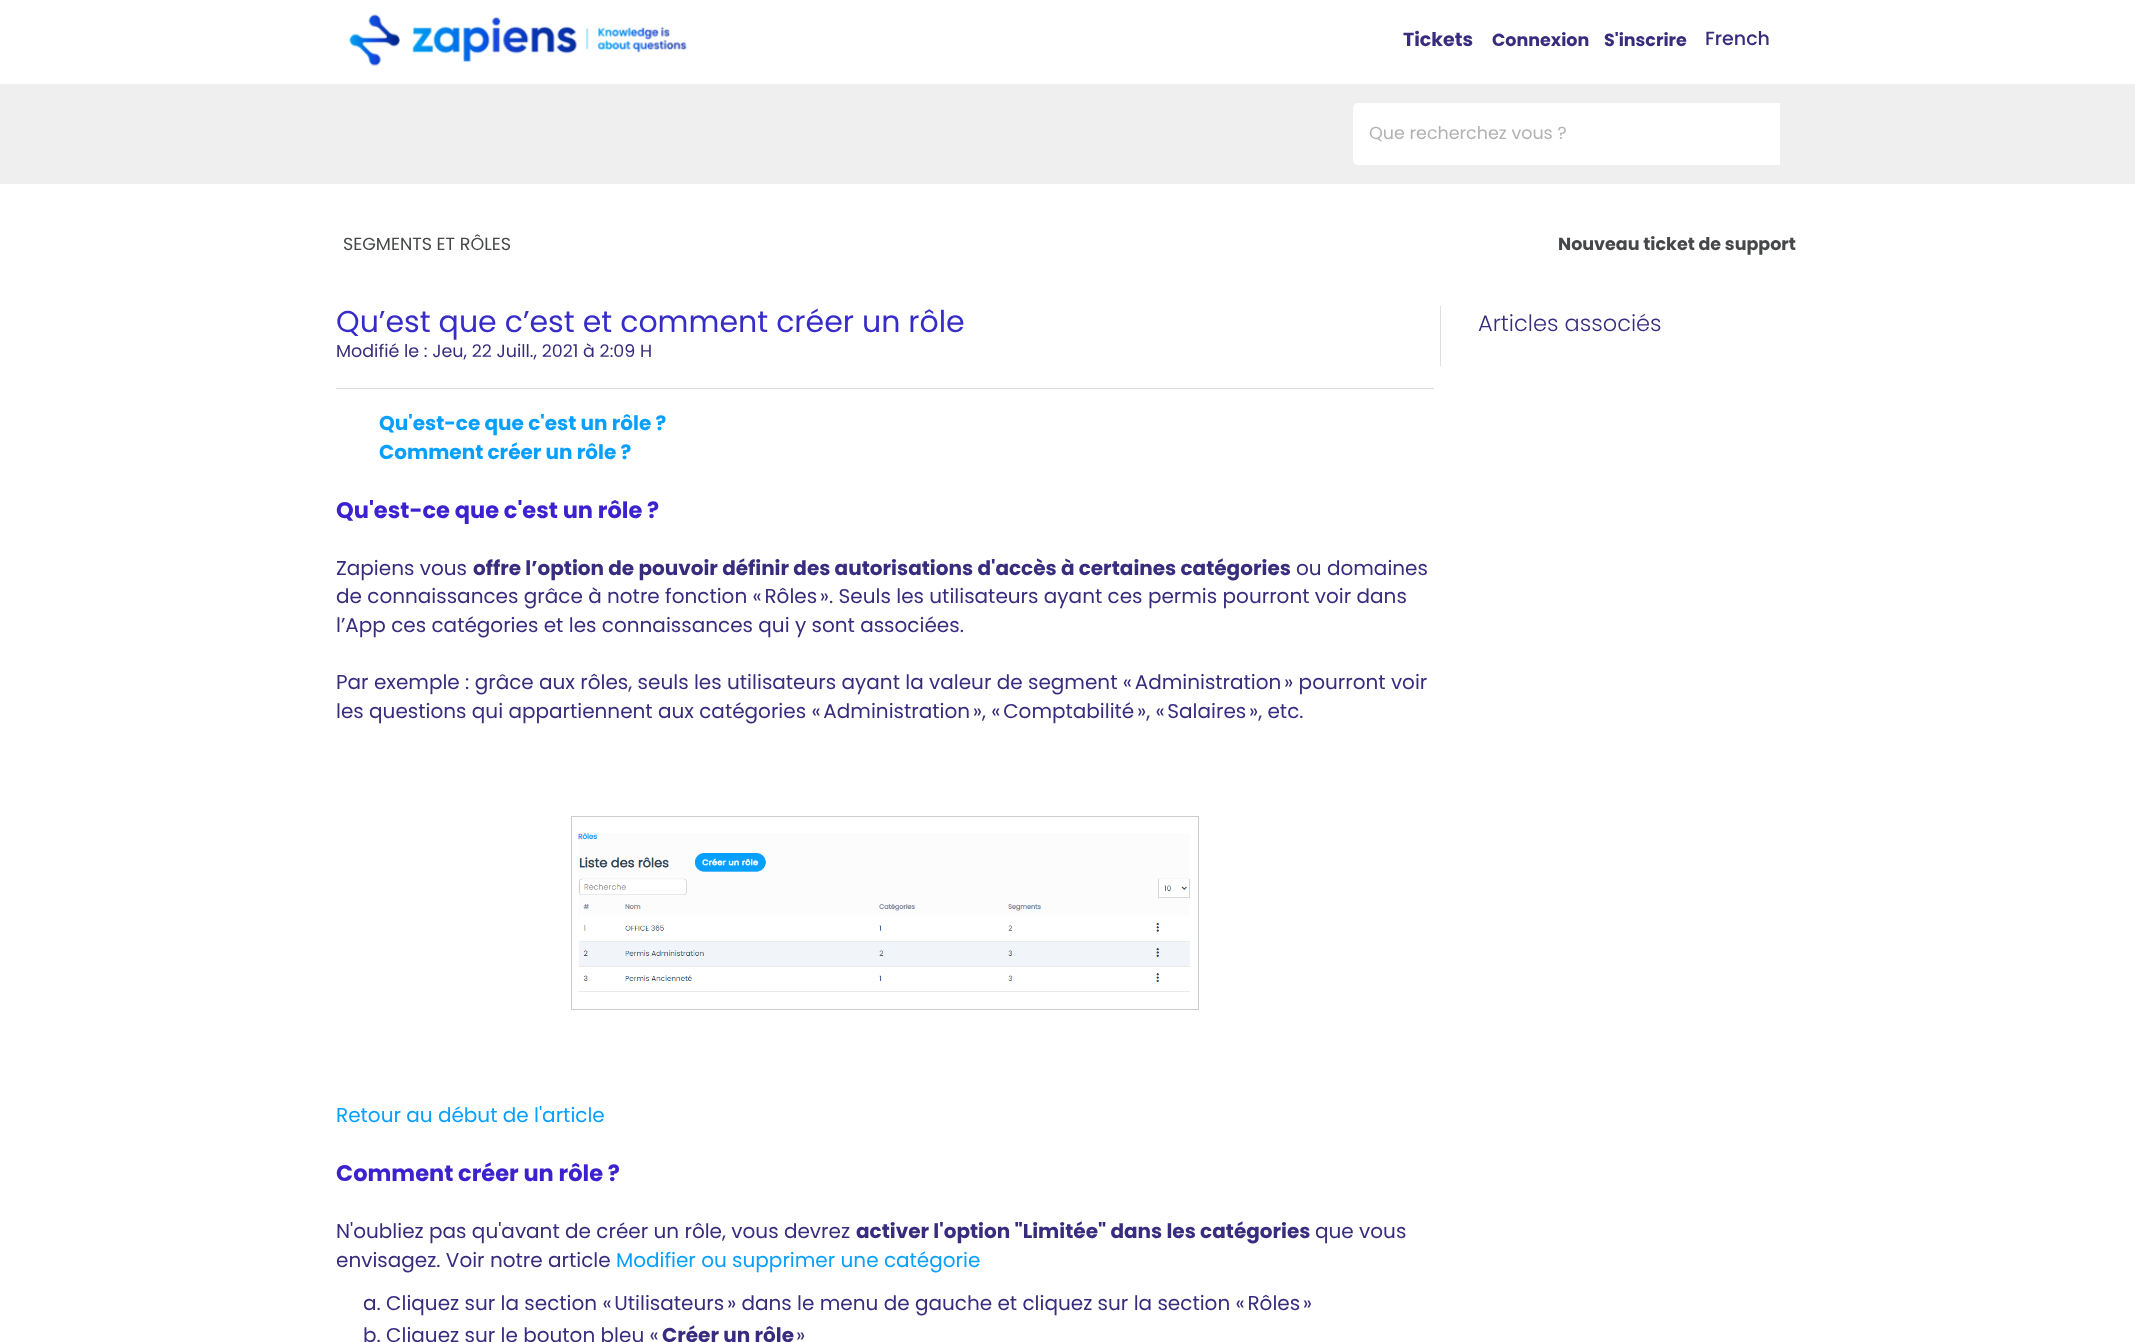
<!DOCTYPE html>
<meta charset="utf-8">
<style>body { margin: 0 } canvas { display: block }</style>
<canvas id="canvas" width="2135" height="1342"></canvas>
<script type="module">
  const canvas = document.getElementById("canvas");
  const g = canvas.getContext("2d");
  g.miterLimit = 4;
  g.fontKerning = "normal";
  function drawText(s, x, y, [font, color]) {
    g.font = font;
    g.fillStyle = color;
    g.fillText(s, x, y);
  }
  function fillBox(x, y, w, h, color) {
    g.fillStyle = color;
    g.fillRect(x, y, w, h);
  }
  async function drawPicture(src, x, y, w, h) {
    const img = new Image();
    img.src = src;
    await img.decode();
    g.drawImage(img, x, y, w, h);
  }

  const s1 = ["bold 19px Poppins", "#372C7D"];
  const s2 = ["bold 17.5px Poppins", "#372C7D"];
  const s3 = ["500 19px Poppins", "#372C7D"];
  const s4 = ["17.5px Poppins", "#B2B2B2"];
  const s5 = ["17.5px Poppins", "#454748"];
  const s6 = ["bold 17.5px Poppins", "#454748"];
  const s7 = ["30px Poppins", "#372CC7"];
  const s8 = ["17.5px Poppins", "#372C7D"];
  const s9 = ["bold 20px Poppins", "#08A0FE"];
  const s10 = ["bold 22.5px Poppins", "#3C21CF"];
  const s11 = ["20px Poppins", "#372C7D"];
  const s12 = ["bold 20px Poppins", "#372C7D"];
  const s13 = ["20px Poppins", "#08A0FE"];
  const s14 = ["300 22.5px Poppins", "#372C7D"];

  fillBox(0, 0, 2135, 1342, "#FFFFFF");
  await drawPicture("pic1.png", 348, 14, 339, 52);
  drawText("Tickets", 1403, 46, s1);
  drawText("Connexion", 1492, 46, s2);
  drawText("S'inscrire", 1604, 46, s2);
  drawText("French", 1705, 45, s3);
  fillBox(0, 84, 2135, 100, "#EFEFEF");
  g.fillStyle = "#FFFFFF";
  g.beginPath();
  g.roundRect(1353, 103, 427, 62, [5, 0, 0, 5]);
  g.fill();
  drawText("Que recherchez vous ?", 1369, 139, s4);
  drawText("SEGMENTS ET RÔLES", 343, 250, s5);
  drawText("Nouveau ticket de support", 1558, 250, s6);
  drawText("Qu’est que c’est et comment créer un rôle", 336, 332, s7);
  drawText("Modifié le : Jeu, 22 Juill., 2021 à 2:09 H", 336, 357, s8);
  fillBox(336, 388, 1098, 1, "#DCDCDC");
  drawText("Qu'est-ce que c'est un rôle ?", 379, 430, s9);
  drawText("Comment créer un rôle ?", 379, 459, s9);
  drawText("Qu'est-ce que c'est un rôle ?", 336, 518, s10);
  drawText("Zapiens vous", 336, 575, s11);
  drawText("offre l’option de pouvoir définir des autorisations d'accès à certaines catégories", 473, 575, s12);
  drawText("ou domaines", 1296, 575, s11);
  drawText("de connaissances grâce à notre fonction « Rôles ». Seuls les utilisateurs ayant ces permis pourront voir dans", 336, 603, s11);
  drawText("l’App ces catégories et les connaissances qui y sont associées.", 336, 632, s11);
  drawText("Par exemple : grâce aux rôles, seuls les utilisateurs ayant la valeur de segment « Administration » pourront voir", 336, 689, s11);
  drawText("les questions qui appartiennent aux catégories « Administration », « Comptabilité », « Salaires », etc.", 336, 718, s11);
  g.strokeStyle = "#CCCCCC";
  g.strokeRect(571.5, 816.5, 627, 193);
  await drawPicture("pic2.png", 578, 833, 612, 159);
  drawText("Retour au début de l'article", 336, 1122, s13);
  drawText("Comment créer un rôle ?", 336, 1181, s10);
  drawText("N'oubliez pas qu'avant de créer un rôle, vous devrez", 336, 1238, s11);
  drawText("activer l'option \"Limitée\" dans les catégories", 856, 1238, s12);
  drawText("que vous", 1315, 1238, s11);
  drawText("envisagez. Voir notre article", 336, 1267, s11);
  drawText("Modifier ou supprimer une catégorie", 616, 1267, s13);
  drawText("a. Cliquez sur la section « Utilisateurs » dans le menu de gauche et cliquez sur la section « Rôles »", 363, 1310, s11);
  drawText("b. Cliquez sur le bouton bleu «", 363, 1342, s11);
  drawText("Créer un rôle", 662, 1342, s12);
  drawText("»", 796, 1342, s11);
  fillBox(1440, 306, 1, 60, "#DEDEDE");
  drawText("Articles associés", 1478, 331, s14);
</script>
